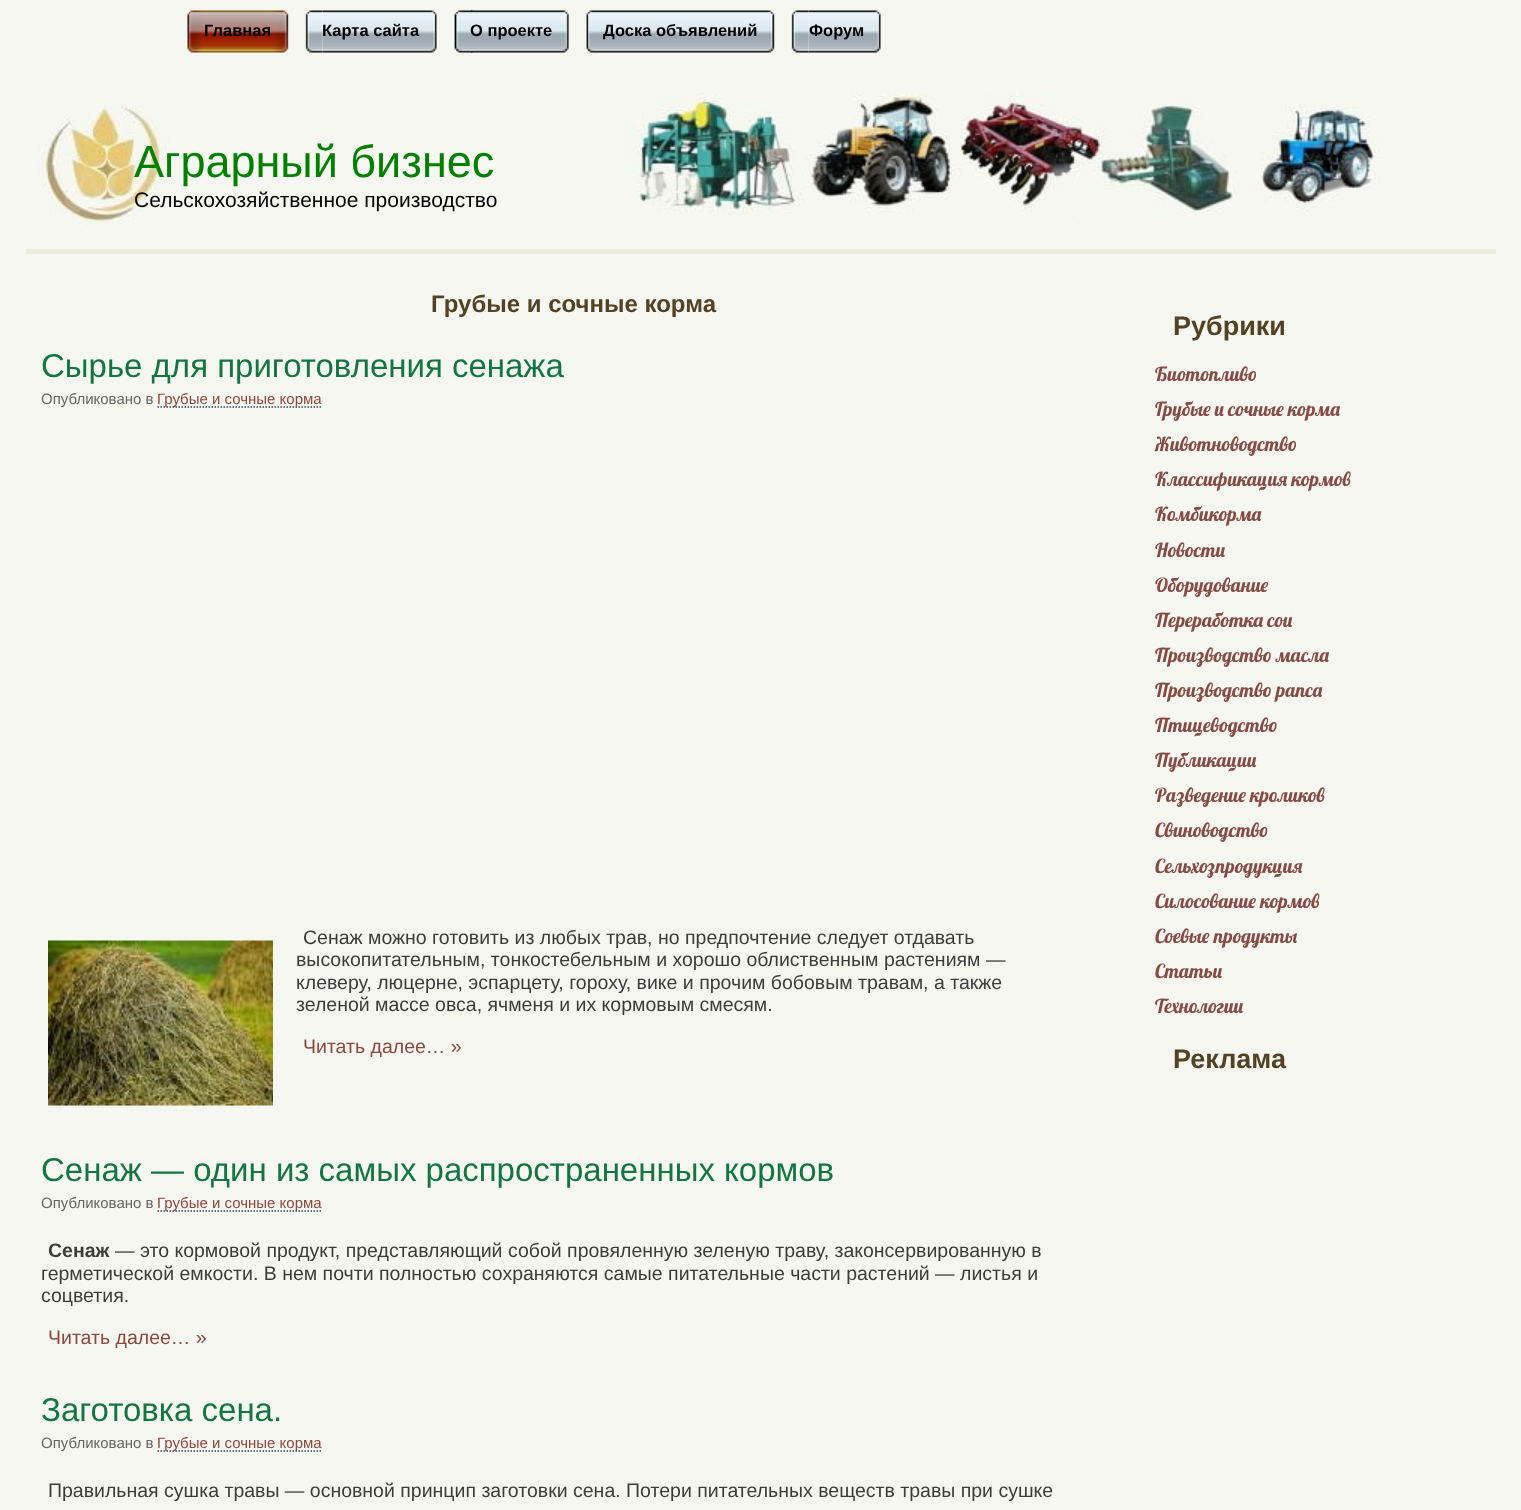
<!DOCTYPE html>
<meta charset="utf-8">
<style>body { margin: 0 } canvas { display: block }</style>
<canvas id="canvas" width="1521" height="1510"></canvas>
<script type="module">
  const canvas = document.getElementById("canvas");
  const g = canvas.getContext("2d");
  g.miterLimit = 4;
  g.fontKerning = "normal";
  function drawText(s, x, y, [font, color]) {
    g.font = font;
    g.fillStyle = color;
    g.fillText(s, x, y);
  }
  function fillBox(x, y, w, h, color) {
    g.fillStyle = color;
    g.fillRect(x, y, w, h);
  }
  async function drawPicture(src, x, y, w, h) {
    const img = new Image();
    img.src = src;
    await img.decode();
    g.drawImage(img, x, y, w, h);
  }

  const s1 = ["bold 16.5px Liberation Sans", "#000000"];
  const s2 = ["45px Liberation Sans", "#008000"];
  const s3 = ["21px Liberation Sans", "#000000"];
  const s4 = ["bold 24px Liberation Sans", "#534124"];
  const s5 = ["33px Liberation Sans", "#137642"];
  const s6 = ["15px Liberation Sans", "#666666"];
  const s7 = ["15px Liberation Sans", "#8C483E"];
  const s8 = ["19.5px Liberation Sans", "#3C3C3C"];
  const s9 = ["19.5px Liberation Sans", "#8C483E"];
  const s10 = ["bold 19.5px Liberation Sans", "#3C3C3C"];
  const s11 = ["bold 27px Liberation Sans", "#534124"];
  const s12 = ["19.5px 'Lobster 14'", "#874B46"];

  fillBox(0, 0, 1521, 1510, "#F7F7F1");
  await drawPicture("pic1.png", 187, 10, 17, 43);
  await drawPicture("pic2.png", 204, 10, 85, 43);
  drawText("Главная", 204, 36, s1);
  await drawPicture("pic3.png", 305, 10, 18, 43);
  await drawPicture("pic4.png", 322, 10, 115, 43);
  drawText("Карта сайта", 322, 36, s1);
  await drawPicture("pic5.png", 454, 10, 19, 43);
  await drawPicture("pic6.png", 471, 10, 98, 43);
  drawText("О проекте", 470, 36, s1);
  await drawPicture("pic7.png", 586, 10, 17, 43);
  await drawPicture("pic8.png", 603, 10, 172, 43);
  drawText("Доска объявлений", 603, 36, s1);
  await drawPicture("pic3.png", 791, 10, 18, 43);
  await drawPicture("pic9.png", 808, 10, 73, 43);
  drawText("Форум", 809, 36, s1);
  await drawPicture("pic10.png", 38, 93, 1343, 132);
  fillBox(26, 249, 1470, 5, "#ECEADB");
  drawText("Аграрный бизнес", 134, 177, s2);
  drawText("Сельскохозяйственное производство", 134, 207, s3);
  drawText("Грубые и сочные корма", 431, 312, s4);
  drawText("Сырье для приготовления сенажа", 41, 377, s5);
  drawText("Опубликовано в", 41, 404, s6);
  g.beginPath();
  g.moveTo(157.5, 407);
  g.lineTo(322.5, 407);
  g.strokeStyle = "#2C455B";
  g.lineWidth = 1.5;
  g.setLineDash([1.5, 1.5]);
  g.stroke();
  drawText("Грубые и сочные корма", 157, 404, s7);
  await drawPicture("pic11.png", 48, 940, 225, 166);
  drawText("Сенаж можно готовить из любых трав, но предпочтение следует отдавать", 303, 944, s8);
  drawText("высокопитательным, тонкостебельным и хорошо облиственным растениям —", 296, 966, s8);
  drawText("клеверу, люцерне, эспарцету, гороху, вике и прочим бобовым травам, а также", 296, 989, s8);
  drawText("зеленой массе овса, ячменя и их кормовым смесям.", 296, 1011, s8);
  drawText("Читать далее… »", 303, 1053, s9);
  drawText("Сенаж — один из самых распространенных кормов", 41, 1181, s5);
  drawText("Опубликовано в", 41, 1208, s6);
  g.beginPath();
  g.moveTo(157.5, 1211);
  g.lineTo(322.5, 1211);
  g.stroke();
  drawText("Грубые и сочные корма", 157, 1208, s7);
  drawText("Сенаж", 48, 1257, s10);
  drawText("— это кормовой продукт, представляющий собой провяленную зеленую траву, законсервированную в", 115, 1257, s8);
  drawText("герметической емкости. В нем почти полностью сохраняются самые питательные части растений — листья и", 41, 1280, s8);
  drawText("соцветия.", 41, 1302, s8);
  drawText("Читать далее… »", 48, 1344, s9);
  drawText("Заготовка сена.", 41, 1421, s5);
  drawText("Опубликовано в", 41, 1448, s6);
  g.beginPath();
  g.moveTo(157.5, 1451);
  g.lineTo(322.5, 1451);
  g.stroke();
  drawText("Грубые и сочные корма", 157, 1448, s7);
  drawText("Правильная сушка травы — основной принцип заготовки сена. Потери питательных веществ травы при сушке", 48, 1497, s8);
  drawText("Рубрики", 1173, 335, s11);
  drawText("Биотопливо", 1155, 381, s12);
  drawText("Грубые и сочные корма", 1155, 416, s12);
  drawText("Животноводство", 1155, 451, s12);
  drawText("Классификация кормов", 1155, 486, s12);
  drawText("Комбикорма", 1155, 521, s12);
  drawText("Новости", 1155, 557, s12);
  drawText("Оборудование", 1155, 592, s12);
  drawText("Переработка сои", 1155, 627, s12);
  drawText("Производство масла", 1155, 662, s12);
  drawText("Производство рапса", 1155, 697, s12);
  drawText("Птицеводство", 1155, 732, s12);
  drawText("Публикации", 1155, 767, s12);
  drawText("Разведение кроликов", 1155, 802, s12);
  drawText("Свиноводство", 1155, 837, s12);
  drawText("Сельхозпродукция", 1155, 873, s12);
  drawText("Силосование кормов", 1155, 908, s12);
  drawText("Соевые продукты", 1155, 943, s12);
  drawText("Статьи", 1155, 978, s12);
  drawText("Технологии", 1155, 1013, s12);
  drawText("Реклама", 1173, 1068, s11);
</script>
